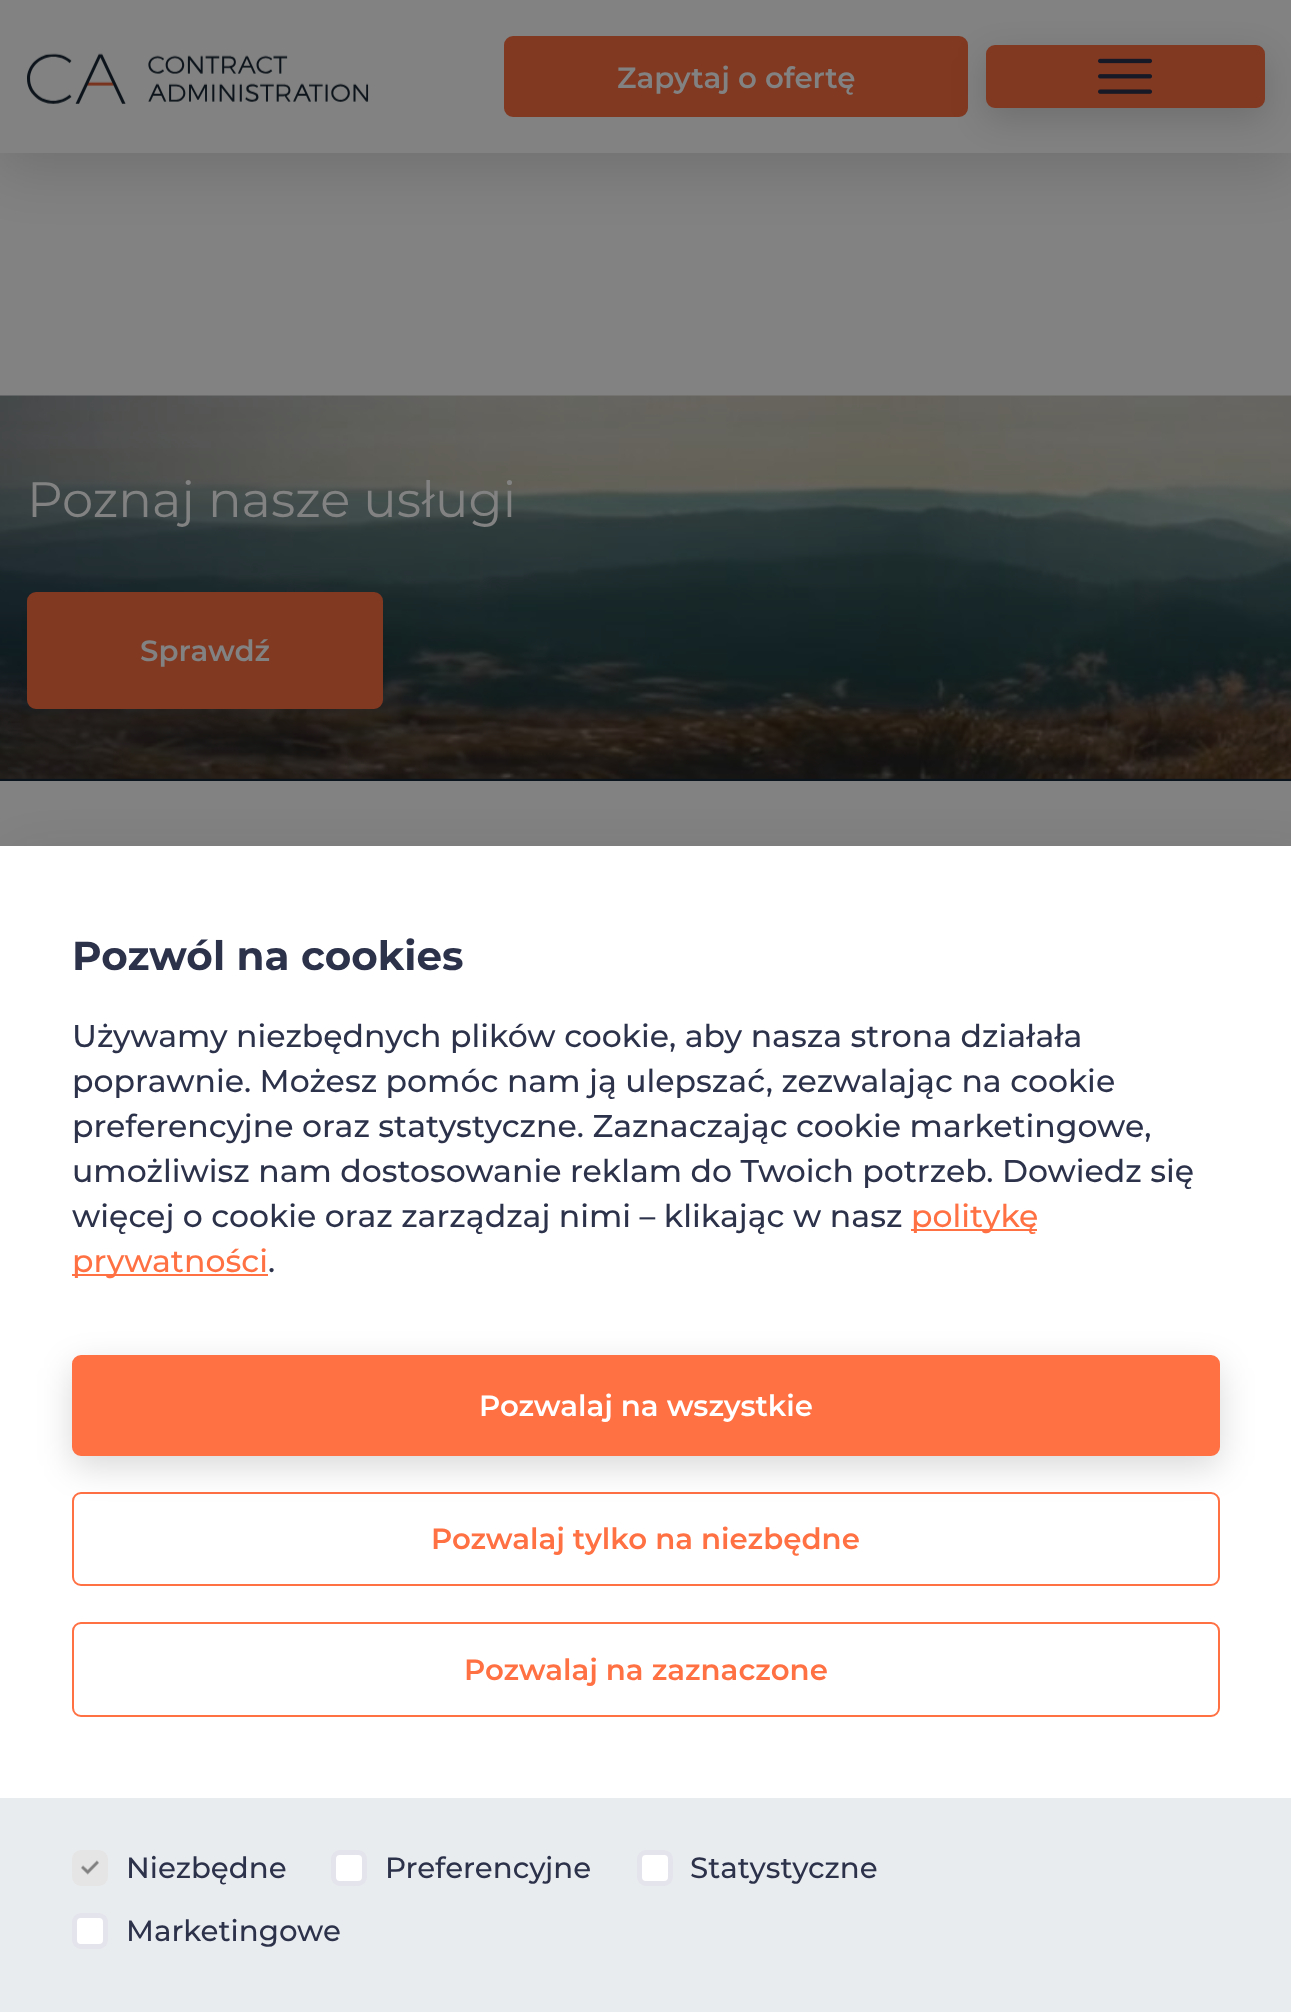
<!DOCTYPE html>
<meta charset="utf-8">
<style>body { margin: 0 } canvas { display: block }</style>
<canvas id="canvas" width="1291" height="2012"></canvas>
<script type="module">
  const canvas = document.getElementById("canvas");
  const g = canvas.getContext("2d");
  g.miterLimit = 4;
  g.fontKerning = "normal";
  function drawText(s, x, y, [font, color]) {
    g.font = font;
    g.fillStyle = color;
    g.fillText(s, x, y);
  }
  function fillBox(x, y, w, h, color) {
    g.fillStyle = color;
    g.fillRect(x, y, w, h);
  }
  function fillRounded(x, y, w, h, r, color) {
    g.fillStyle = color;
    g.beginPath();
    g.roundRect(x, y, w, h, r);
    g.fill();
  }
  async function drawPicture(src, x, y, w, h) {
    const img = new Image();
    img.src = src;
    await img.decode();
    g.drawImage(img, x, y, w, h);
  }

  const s1 = ["600 29.25px Montserrat", "#828282"];
  const s2 = ["49.75px Montserrat", "#828282"];
  const s3 = ["bold 40.5px Montserrat", "#2D324B"];
  const s4 = ["500 31.5px Montserrat", "#2D324B"];
  const s5 = ["500 31.5px Montserrat", "#FF7043"];
  const s6 = ["600 29.25px Montserrat", "#FFFFFF"];
  const s7 = ["600 29.25px Montserrat", "#FF7043"];
  const s8 = ["500 29.25px Montserrat", "#2D324B"];

  fillBox(0, 0, 1291, 2012, "#828282");
  g.fillStyle = "rgba(0, 0, 0, 0.13)";
  g.filter = "blur(27px)";
  g.beginPath();
  g.rect(0, 18, 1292, 153);
  g.fill();
  g.filter = "none";
  fillBox(0, 0, 1291, 153, "#828282");
  await drawPicture("pic1.png", 27, 53, 342, 51);
  g.fillStyle = "#823922";
  g.beginPath();
  g.roundRect(506.5, 38.5, 459, 76, 6.5);
  g.fill();
  g.strokeStyle = "#823922";
  g.lineWidth = 5;
  g.stroke();
  drawText("Zapytaj o ofertę", 617, 88, s1);
  g.fillStyle = "rgba(0, 0, 0, 0.15)";
  g.filter = "blur(17px)";
  g.beginPath();
  g.roundRect(986, 56, 279, 63, 9);
  g.fill();
  g.filter = "none";
  g.fillStyle = "#823922";
  g.beginPath();
  g.roundRect(988.5, 47.5, 274, 58, 6.5);
  g.fill();
  g.stroke();
  await drawPicture("pic2.png", 1098, 58, 54, 36);
  fillBox(0, 778, 1291, 3, "#09131C");
  await drawPicture("pic3.png", 0, 395, 1291, 384);
  drawText("Poznaj nasze usługi", 27, 517, s2);
  g.fillStyle = "#823922";
  g.beginPath();
  g.roundRect(29.5, 594.5, 351, 112, 6.5);
  g.fill();
  g.stroke();
  drawText("Sprawdź", 140, 661, s1);
  g.fillStyle = "rgba(27, 30, 33, 0.15)";
  g.filter = "blur(27px)";
  g.beginPath();
  g.rect(18, 864, 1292, 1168);
  g.fill();
  g.filter = "none";
  fillBox(0, 846, 1291, 952, "#FFFFFF");
  drawText("Pozwól na cookies", 72, 970, s3);
  drawText("Używamy niezbędnych plików cookie, aby nasza strona działała", 72, 1047, s4);
  drawText("poprawnie. Możesz pomóc nam ją ulepszać, zezwalając na cookie", 72, 1092, s4);
  drawText("preferencyjne oraz statystyczne. Zaznaczając cookie marketingowe,", 72, 1137, s4);
  drawText("umożliwisz nam dostosowanie reklam do Twoich potrzeb. Dowiedz się", 72, 1182, s4);
  drawText("więcej o cookie oraz zarządzaj nimi – klikając w nasz", 72, 1227, s4);
  fillBox(911, 1229, 126, 2, "#FF7043");
  drawText("politykę", 911, 1227, s5);
  fillBox(72, 1274, 196, 2, "#FF7043");
  drawText("prywatności", 72, 1272, s5);
  drawText(".", 268, 1272, s4);
  g.beginPath();
  g.roundRect(73, 1493, 1146, 92, 8);
  g.strokeStyle = "#FF7043";
  g.lineWidth = 2;
  g.stroke();
  g.fillStyle = "rgba(0, 0, 0, 0.15)";
  g.filter = "blur(17px)";
  g.beginPath();
  g.roundRect(72, 1366, 1148, 101, 9);
  g.fill();
  g.filter = "none";
  g.fillStyle = "#FF7043";
  g.beginPath();
  g.roundRect(74.5, 1357.5, 1143, 96, 6.5);
  g.fill();
  g.lineWidth = 5;
  g.stroke();
  drawText("Pozwalaj na wszystkie", 479, 1416, s6);
  drawText("Pozwalaj tylko na niezbędne", 431, 1549, s7);
  g.beginPath();
  g.roundRect(73, 1623, 1146, 93, 8);
  g.lineWidth = 2;
  g.stroke();
  drawText("Pozwalaj na zaznaczone", 464, 1680, s7);
  fillBox(0, 1798, 1291, 214, "#E9ECEF");
  fillRounded(72, 1850, 36, 36, 9, "#E5E5E5");
  await drawPicture("pic4.png", 81, 1860, 18, 15);
  drawText("Niezbędne", 126, 1878, s8);
  g.fillStyle = "#FFFFFF";
  g.beginPath();
  g.roundRect(333.5, 1852.5, 31, 31, 6.5);
  g.fill();
  g.strokeStyle = "#E4E4EC";
  g.lineWidth = 5;
  g.stroke();
  drawText("Preferencyjne", 385, 1878, s8);
  g.fillStyle = "#FFFFFF";
  g.beginPath();
  g.roundRect(639.5, 1852.5, 31, 31, 6.5);
  g.fill();
  g.stroke();
  drawText("Statystyczne", 690, 1878, s8);
  g.fillStyle = "#FFFFFF";
  g.beginPath();
  g.roundRect(74.5, 1915.5, 31, 31, 6.5);
  g.fill();
  g.stroke();
  drawText("Marketingowe", 126, 1941, s8);
</script>
